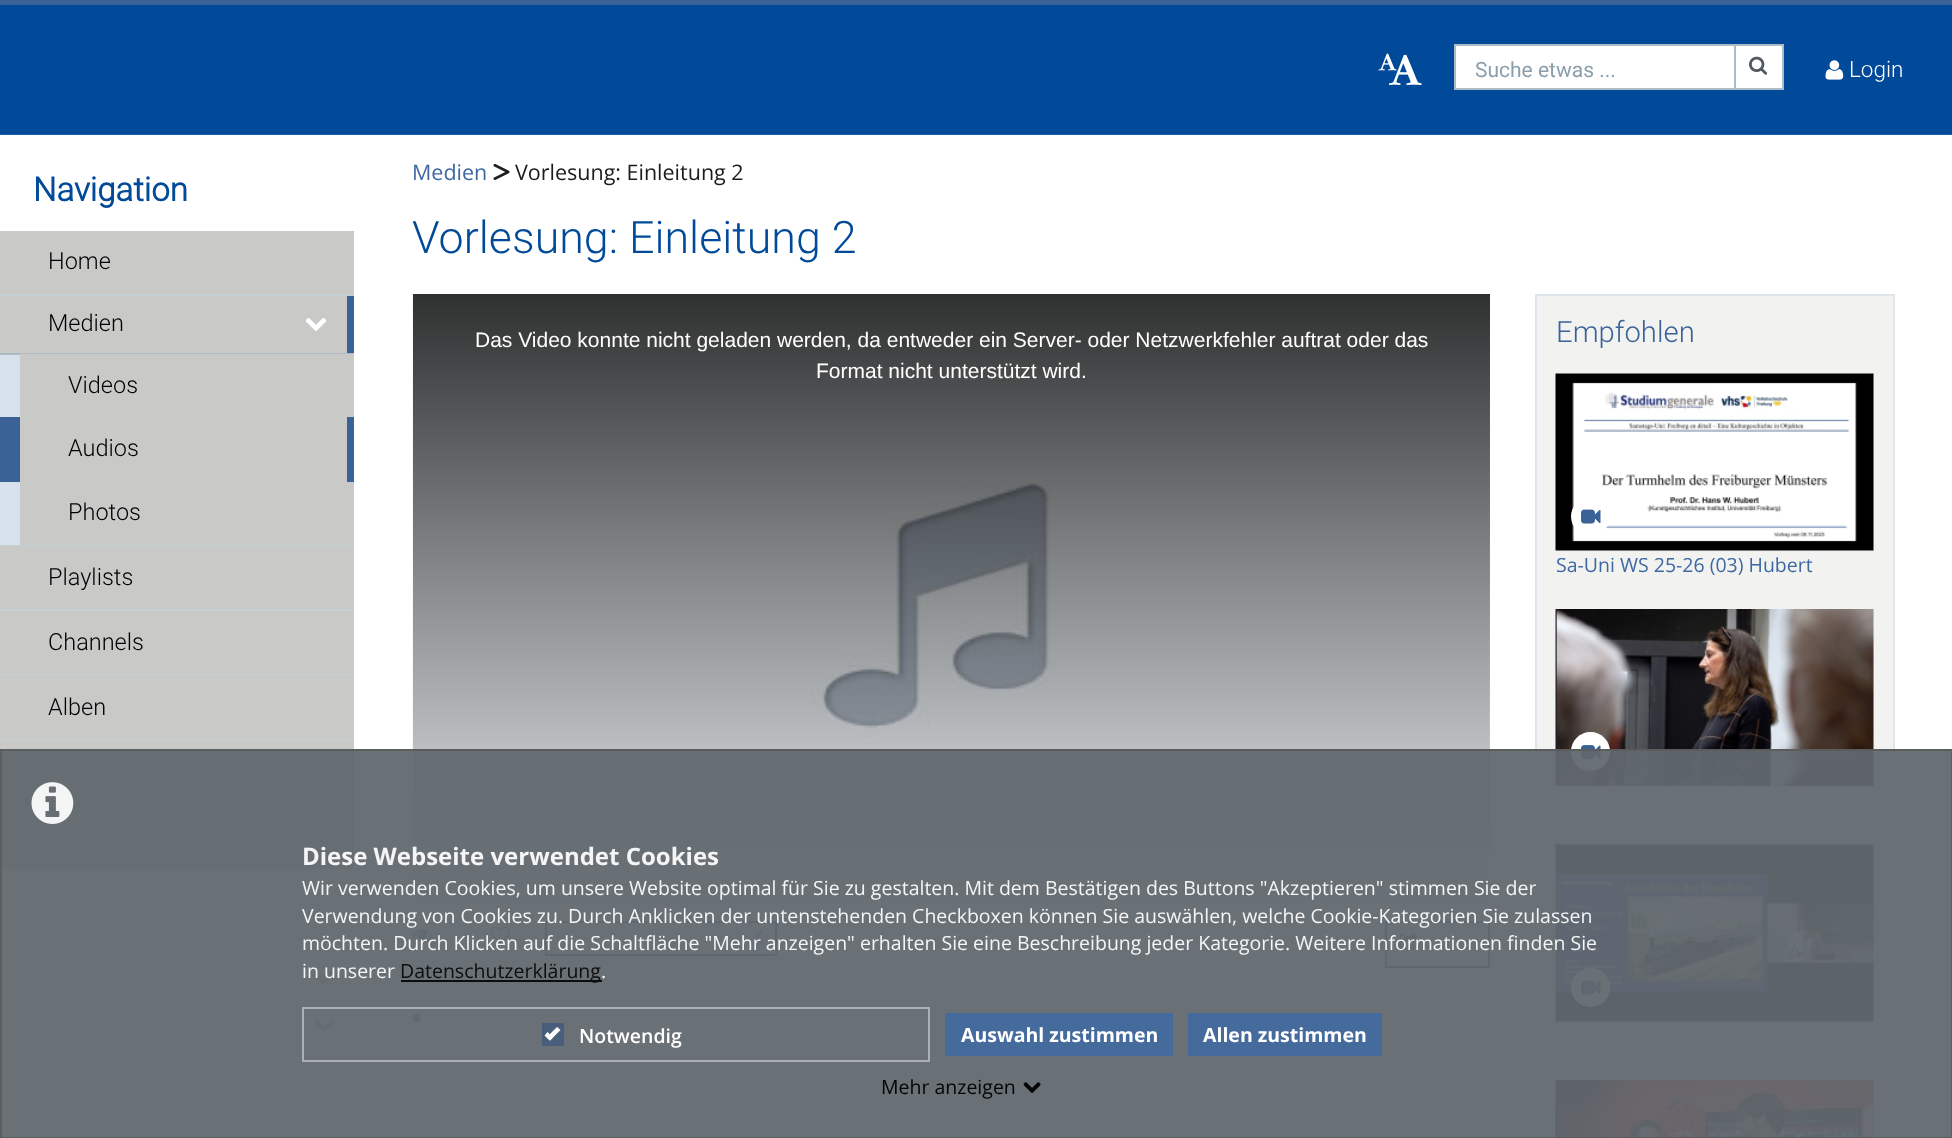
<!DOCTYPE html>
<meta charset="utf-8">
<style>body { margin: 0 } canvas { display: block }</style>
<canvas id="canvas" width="1952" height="1138"></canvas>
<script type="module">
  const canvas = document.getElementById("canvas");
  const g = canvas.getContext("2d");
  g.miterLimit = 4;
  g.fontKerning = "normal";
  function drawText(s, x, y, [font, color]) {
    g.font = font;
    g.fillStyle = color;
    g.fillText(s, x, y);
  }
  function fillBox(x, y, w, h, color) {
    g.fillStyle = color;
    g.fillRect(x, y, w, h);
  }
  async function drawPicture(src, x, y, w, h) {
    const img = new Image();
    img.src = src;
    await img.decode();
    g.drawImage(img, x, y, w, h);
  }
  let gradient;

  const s1 = ["21px Roboto", "#8A9EAC"];
  const s2 = ["300 22.5px Roboto", "#FFFFFF"];
  const s3 = ["bold 33px Roboto", "#004A99"];
  const s4 = ["300 23.5px Roboto", "#000000"];
  const s5 = ["21.5px Open Sans", "#3F68A2"];
  const s6 = ["21.5px Open Sans", "#1A1C1E"];
  const s7 = ["300 44.75px Roboto", "#004A99"];
  const s8 = ["21px Liberation Sans", "#FFFFFF"];
  const s9 = ["300 29.25px Roboto", "#3B6297"];
  const s10 = ["19.5px Open Sans", "#3F68A2"];
  const s11 = ["bold 24px Open Sans", "#F5F5F5"];
  const s12 = ["19.5px Open Sans", "#F5F5F5"];
  const s13 = ["19.5px Open Sans", "#0D0D0D"];
  const s14 = ["19.5px Open Sans", "#FFFFFF"];
  const s15 = ["600 19.5px Open Sans", "#FFFFFF"];
  const s16 = ["bold 19.5px Open Sans", "#FFFFFF"];
  const s17 = ["19.5px Open Sans", "#050506"];

  fillBox(0, 0, 1952, 1138, "#FFFFFF");
  fillBox(0, 5, 1952, 129, "#004A99");
  fillBox(0, 134, 1952, 1, "#1A5CA3");
  fillBox(0, 0, 1952, 5, "#3B6297");
  await drawPicture("pic1.png", 1378, 53, 19, 18);
  await drawPicture("pic2.png", 1389, 54, 33, 31);
  g.fillStyle = "#FFFFFF";
  g.beginPath();
  g.rect(1455, 45, 280, 44);
  g.fill();
  g.strokeStyle = "#ACBBC3";
  g.lineWidth = 2;
  g.stroke();
  g.beginPath();
  g.rect(1735, 45, 48, 44);
  g.fill();
  g.stroke();
  await drawPicture("pic3.png", 1749, 56, 19, 19);
  drawText("Suche etwas ...", 1475, 77, s1);
  await drawPicture("pic4.png", 1825, 60, 19, 20);
  drawText("Login", 1849, 77, s2);
  drawText("Navigation", 33, 201, s3);
  fillBox(0, 231, 354, 63, "#C9CAC8");
  drawText("Home", 48, 269, s4);
  fillBox(0, 417, 20, 65, "#3B6297");
  fillBox(0, 294, 354, 2, "#C5D0D5");
  fillBox(0, 296, 347, 57, "#C9CAC8");
  drawText("Medien", 48, 331, s4);
  fillBox(347, 296, 7, 57, "#3B6297");
  await drawPicture("pic5.png", 305, 318, 22, 13);
  fillBox(0, 355, 20, 62, "#D8E2EC");
  fillBox(0, 353, 354, 2, "#ACBBC3");
  fillBox(20, 354, 334, 63, "#C9CAC8");
  drawText("Videos", 68, 393, s4);
  fillBox(20, 417, 327, 65, "#C9CAC8");
  fillBox(347, 417, 7, 65, "#3B6297");
  drawText("Audios", 68, 456, s4);
  fillBox(0, 482, 20, 63, "#D8E2EC");
  fillBox(20, 482, 334, 63, "#C9CAC8");
  drawText("Photos", 68, 520, s4);
  fillBox(0, 545, 354, 1, "#C5D0D5");
  fillBox(0, 546, 354, 63, "#C9CAC8");
  drawText("Playlists", 48, 585, s4);
  fillBox(0, 609, 354, 2, "#C5D0D5");
  fillBox(0, 611, 354, 63, "#C9CAC8");
  drawText("Channels", 48, 650, s4);
  fillBox(0, 674, 354, 1, "#C5D0D5");
  fillBox(0, 675, 354, 65, "#C9CAC8");
  drawText("Alben", 48, 715, s4);
  fillBox(0, 740, 354, 1, "#C5D0D5");
  fillBox(0, 741, 354, 63, "#C9CAC8");
  fillBox(0, 804, 354, 2, "#C5D0D5");
  fillBox(0, 806, 354, 63, "#C9CAC8");
  await drawPicture("pic6.png", 313, 971, 21, 14);
  await drawPicture("pic7.png", 314, 1019, 21, 13);
  drawText("Medien", 412, 180, s5);
  await drawPicture("pic8.png", 493, 163, 17, 17);
  drawText("Vorlesung: Einleitung 2", 515, 180, s6);
  drawText("Vorlesung: Einleitung 2", 412, 253, s7);
  await drawPicture("pic9.png", 412, 294, 1078, 606);
  gradient = g.createLinearGradient(951, 294, 951, 902);
  gradient.addColorStop(0, "rgba(0, 0, 0, 0.8)");
  gradient.addColorStop(1, "rgba(0, 0, 0, 0)");
  g.fillStyle = gradient;
  g.fillRect(413, 294, 1077, 592);
  drawText("Das Video konnte nicht geladen werden, da entweder ein Server- oder Netzwerkfehler auftrat oder das", 475, 347, s8);
  drawText("Format nicht unterstützt wird.", 816, 378, s8);
  g.fillStyle = "#F2F3F1";
  g.beginPath();
  g.rect(1536, 295, 358, 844);
  g.fill();
  g.strokeStyle = "#DFE5EB";
  g.stroke();
  drawText("Empfohlen", 1556, 342, s9);
  fillBox(1556, 374, 318, 177, "#ECEFF2");
  await drawPicture("pic10.png", 1555, 373, 319, 178);
  g.fillStyle = "#FFFFFF";
  g.beginPath();
  g.arc(1590.5, 516.5, 19.5, 0, Math.PI * 2);
  g.fill();
  await drawPicture("pic11.png", 1581, 509, 20, 15);
  drawText("Sa-Uni WS 25-26 (03) Hubert", 1556, 572, s10);
  fillBox(1873, 609, 1, 177, "#ECEFF2");
  await drawPicture("pic12.png", 1555, 609, 319, 177);
  g.fillStyle = "#FFFFFF";
  g.beginPath();
  g.arc(1590.5, 751.5, 19.5, 0, Math.PI * 2);
  g.fill();
  await drawPicture("pic13.png", 1581, 745, 20, 14);
  fillBox(1556, 845, 318, 177, "#ECEFF2");
  await drawPicture("pic14.png", 1555, 844, 319, 178);
  g.fillStyle = "#FFFFFF";
  g.beginPath();
  g.arc(1590.5, 987.5, 19.5, 0, Math.PI * 2);
  g.fill();
  await drawPicture("pic11.png", 1581, 980, 20, 15);
  fillBox(1873, 1080, 1, 58, "#ECEFF2");
  await drawPicture("pic15.png", 1555, 1080, 319, 58);
  await drawPicture("pic16.png", 412, 929, 20, 13);
  await drawPicture("pic17.png", 490, 926, 20, 18);
  g.strokeStyle = "#475D7B";
  g.strokeRect(546, 922, 230, 33);
  g.fillStyle = "#475D7B";
  g.beginPath();
  g.moveTo(756.5, 938);
  g.lineTo(762.5, 944);
  g.lineTo(761.5, 945);
  g.lineTo(755.5, 939);
  g.closePath();
  g.moveTo(761.5, 931);
  g.lineTo(762.5, 932);
  g.lineTo(756.5, 938);
  g.lineTo(755.5, 937);
  g.closePath();
  g.fill();
  g.strokeRect(1386, 922, 103, 45);
  await drawPicture("pic18.png", 1399, 932, 19, 18);
  await drawPicture("pic19.png", 412, 1013, 9, 10);
  fillBox(0, 749, 1952, 389, "rgba(97, 104, 111, 0.95)");
  g.strokeStyle = "rgba(92, 92, 92, 0.95)";
  g.strokeRect(1, 750, 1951, 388);
  await drawPicture("pic20.png", 31, 782, 43, 42);
  drawText("Diese Webseite verwendet Cookies", 302, 865, s11);
  drawText("Wir verwenden Cookies, um unsere Website optimal für Sie zu gestalten. Mit dem Bestätigen des Buttons \"Akzeptieren\" stimmen Sie der", 302, 895, s12);
  drawText("Verwendung von Cookies zu. Durch Anklicken der untenstehenden Checkboxen können Sie auswählen, welche Cookie-Kategorien Sie zulassen", 302, 923, s12);
  drawText("möchten. Durch Klicken auf die Schaltfläche \"Mehr anzeigen\" erhalten Sie eine Beschreibung jeder Kategorie. Weitere Informationen finden Sie", 302, 950, s12);
  drawText("in unserer", 302, 978, s12);
  fillBox(401, 980, 201, 2, "#0D0D0D");
  drawText("Datenschutzerklärung", 400, 978, s13);
  drawText(".", 601, 978, s14);
  g.strokeStyle = "rgba(176, 179, 184, 0.95)";
  g.strokeRect(303, 1008, 626, 53);
  fillBox(544, 1025, 18, 19, "#6D7176");
  g.beginPath();
  g.moveTo(546, 1034);
  g.lineTo(550.5, 1039);
  g.lineTo(559.5, 1027.5);
  g.strokeStyle = "#FFFFFF";
  g.lineWidth = 3.6;
  g.stroke();
  g.fillStyle = "rgba(71, 93, 123, 0.95)";
  g.beginPath();
  g.rect(543, 1024, 20, 21);
  g.fill();
  g.strokeStyle = "#475D7B";
  g.lineWidth = 2;
  g.stroke();
  g.fillStyle = "#FFFFFF";
  g.beginPath();
  g.moveTo(557, 1027);
  g.lineTo(560.5, 1030);
  g.lineTo(550, 1040.5);
  g.lineTo(546.5, 1037.5);
  g.closePath();
  g.fill();
  g.beginPath();
  g.moveTo(547.5, 1032);
  g.lineTo(553, 1037.5);
  g.lineTo(550, 1040.5);
  g.lineTo(544.5, 1035.5);
  g.closePath();
  g.fill();
  drawText("Notwendig", 579, 1043, s15);
  fillBox(945, 1013, 228, 43, "#456A9C");
  drawText("Auswahl zustimmen", 961, 1042, s16);
  fillBox(1188, 1013, 194, 43, "#456A9C");
  drawText("Allen zustimmen", 1203, 1042, s16);
  drawText("Mehr anzeigen", 881, 1094, s17);
  await drawPicture("pic21.png", 1023, 1082, 18, 11);
</script>
